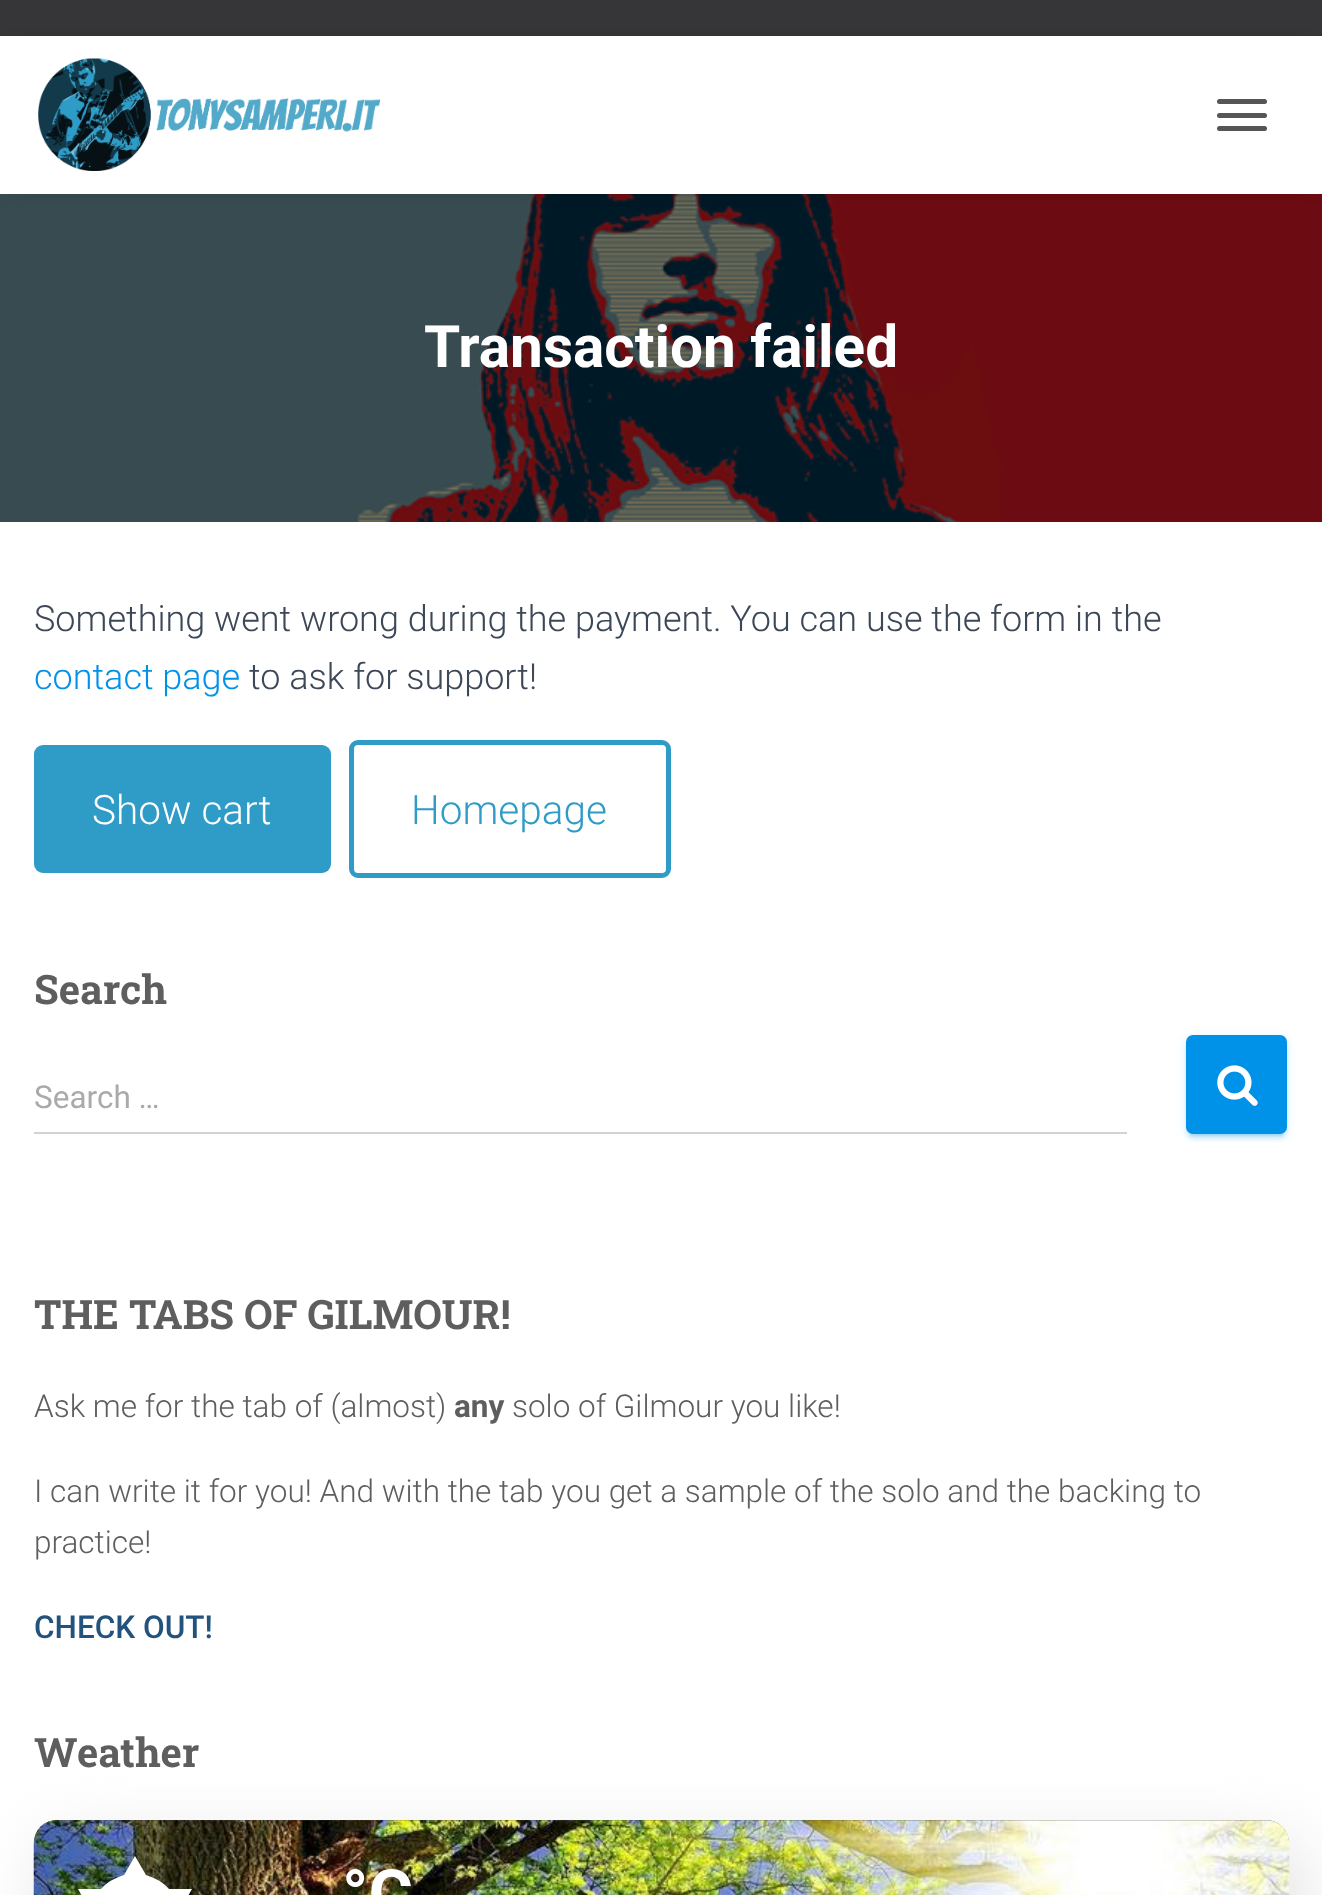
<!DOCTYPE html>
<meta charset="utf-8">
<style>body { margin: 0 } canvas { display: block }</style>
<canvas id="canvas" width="1322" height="1895"></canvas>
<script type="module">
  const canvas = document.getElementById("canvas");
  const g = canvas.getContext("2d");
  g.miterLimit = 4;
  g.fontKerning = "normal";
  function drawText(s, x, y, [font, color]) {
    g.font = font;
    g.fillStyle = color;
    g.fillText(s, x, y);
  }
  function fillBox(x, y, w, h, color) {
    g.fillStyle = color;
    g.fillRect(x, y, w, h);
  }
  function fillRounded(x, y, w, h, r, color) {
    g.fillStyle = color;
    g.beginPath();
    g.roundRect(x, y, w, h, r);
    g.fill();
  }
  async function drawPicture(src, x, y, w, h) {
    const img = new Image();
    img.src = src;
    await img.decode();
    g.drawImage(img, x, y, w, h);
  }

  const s1 = ["bold 58.5px Roboto", "#FFFFFF"];
  const s2 = ["300 36px Roboto", "#3C4858"];
  const s3 = ["300 36px Roboto", "#0092E8"];
  const s4 = ["300 40.5px Roboto", "#FFFFFF"];
  const s5 = ["300 40.5px Roboto", "#2E9CC7"];
  const s6 = ["bold 40.5px Roboto Slab", "#5E5E5E"];
  const s7 = ["31.5px Roboto", "#AAAAAA"];
  const s8 = ["300 31.5px Roboto", "#5E5E5E"];
  const s9 = ["bold 31.5px Roboto", "#5E5E5E"];
  const s10 = ["500 31.5px Roboto", "#23527C"];
  const s11 = ["bold 68px Roboto", "#FFFFFF"];

  fillBox(0, 0, 1322, 1895, "#363537");
  await drawPicture("pic2.png", 0, 194, 1322, 328);
  g.fillStyle = "rgba(0, 0, 0, 0.42)";
  g.filter = "blur(11px)";
  g.beginPath();
  g.rect(14, 52, 1296, 130);
  g.fill();
  g.filter = "none";
  fillBox(0, 36, 1322, 158, "#FFFFFF");
  await drawPicture("pic1.png", 38, 58, 343, 113);
  fillRounded(1217, 99, 50, 5, 2.5, "#555555");
  fillRounded(1217, 113, 50, 5, 2.5, "#555555");
  fillRounded(1217, 126, 50, 5, 2.5, "#555555");
  drawText("Transaction failed", 424, 367, s1);
  fillBox(0, 522, 1322, 1373, "#FFFFFF");
  drawText("Something went wrong during the payment. You can use the form in the", 34, 631, s2);
  drawText("contact page", 34, 689, s3);
  drawText("to ask for support!", 249, 689, s2);
  fillRounded(34, 745, 297, 128, 9, "#2E9CC7");
  drawText("Show cart", 92, 824, s4);
  g.beginPath();
  g.roundRect(351.5, 742.5, 317, 133, 6.5);
  g.strokeStyle = "#2E9CC7";
  g.lineWidth = 5;
  g.stroke();
  drawText("Homepage", 411, 824, s5);
  drawText("Search", 34, 1004, s6);
  drawText("Search …", 34, 1108, s7);
  fillBox(34, 1132, 1093, 2, "#D2D2D2");
  g.fillStyle = "rgba(0, 146, 232, 0.12)";
  g.filter = "blur(5.5px)";
  g.beginPath();
  g.roundRect(1186, 1037, 101, 99, 7);
  g.fill();
  g.filter = "none";
  g.fillStyle = "rgba(0, 146, 232, 0.2)";
  g.filter = "blur(1px)";
  g.beginPath();
  g.roundRect(1190, 1046, 93, 90, 2);
  g.fill();
  g.filter = "none";
  g.fillStyle = "rgba(0, 146, 232, 0.14)";
  g.filter = "blur(2px)";
  g.beginPath();
  g.roundRect(1186, 1040, 101, 99, 7);
  g.fill();
  g.filter = "none";
  fillRounded(1186, 1035, 101, 99, 7, "#0092E8");
  await drawPicture("pic3.png", 1217, 1065, 41, 41);
  drawText("THE TABS OF GILMOUR!", 34, 1329, s6);
  drawText("Ask me for the tab of (almost)", 34, 1417, s8);
  drawText("any", 454, 1417, s9);
  drawText("solo of Gilmour you like!", 512, 1417, s8);
  drawText("I can write it for you! And with the tab you get a sample of the solo and the backing to", 34, 1502, s8);
  drawText("practice!", 34, 1553, s8);
  drawText("CHECK OUT!", 34, 1638, s10);
  drawText("Weather", 34, 1767, s6);
  g.fillStyle = "#E2E2E2";
  g.filter = "blur(34px)";
  g.beginPath();
  g.roundRect(45, 1843, 1256, 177, 23);
  g.fill();
  g.filter = "none";
  fillRounded(34, 1820, 1255, 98, 23, "#444444");
  await drawPicture("pic4.png", 33, 1820, 1257, 75);
  g.fillStyle = "#FFFFFF";
  g.beginPath();
  g.moveTo(135, 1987);
  g.lineTo(124, 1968);
  g.bezierCurveTo(115, 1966, 107, 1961, 101, 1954);
  g.lineTo(78, 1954);
  g.lineTo(89, 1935);
  g.bezierCurveTo(87, 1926, 87, 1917, 89, 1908);
  g.lineTo(78, 1889);
  g.lineTo(101, 1889);
  g.bezierCurveTo(107, 1882, 115, 1878, 124, 1875);
  g.lineTo(135, 1856);
  g.lineTo(146, 1875);
  g.bezierCurveTo(155, 1878, 163, 1882, 169, 1889);
  g.lineTo(192, 1889);
  g.lineTo(181, 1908);
  g.bezierCurveTo(183, 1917, 183, 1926, 181, 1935);
  g.lineTo(192, 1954);
  g.lineTo(169, 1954);
  g.bezierCurveTo(163, 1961, 155, 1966, 146, 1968);
  g.closePath();
  g.fill();
  drawText("°C", 342, 1918, s11);
</script>
